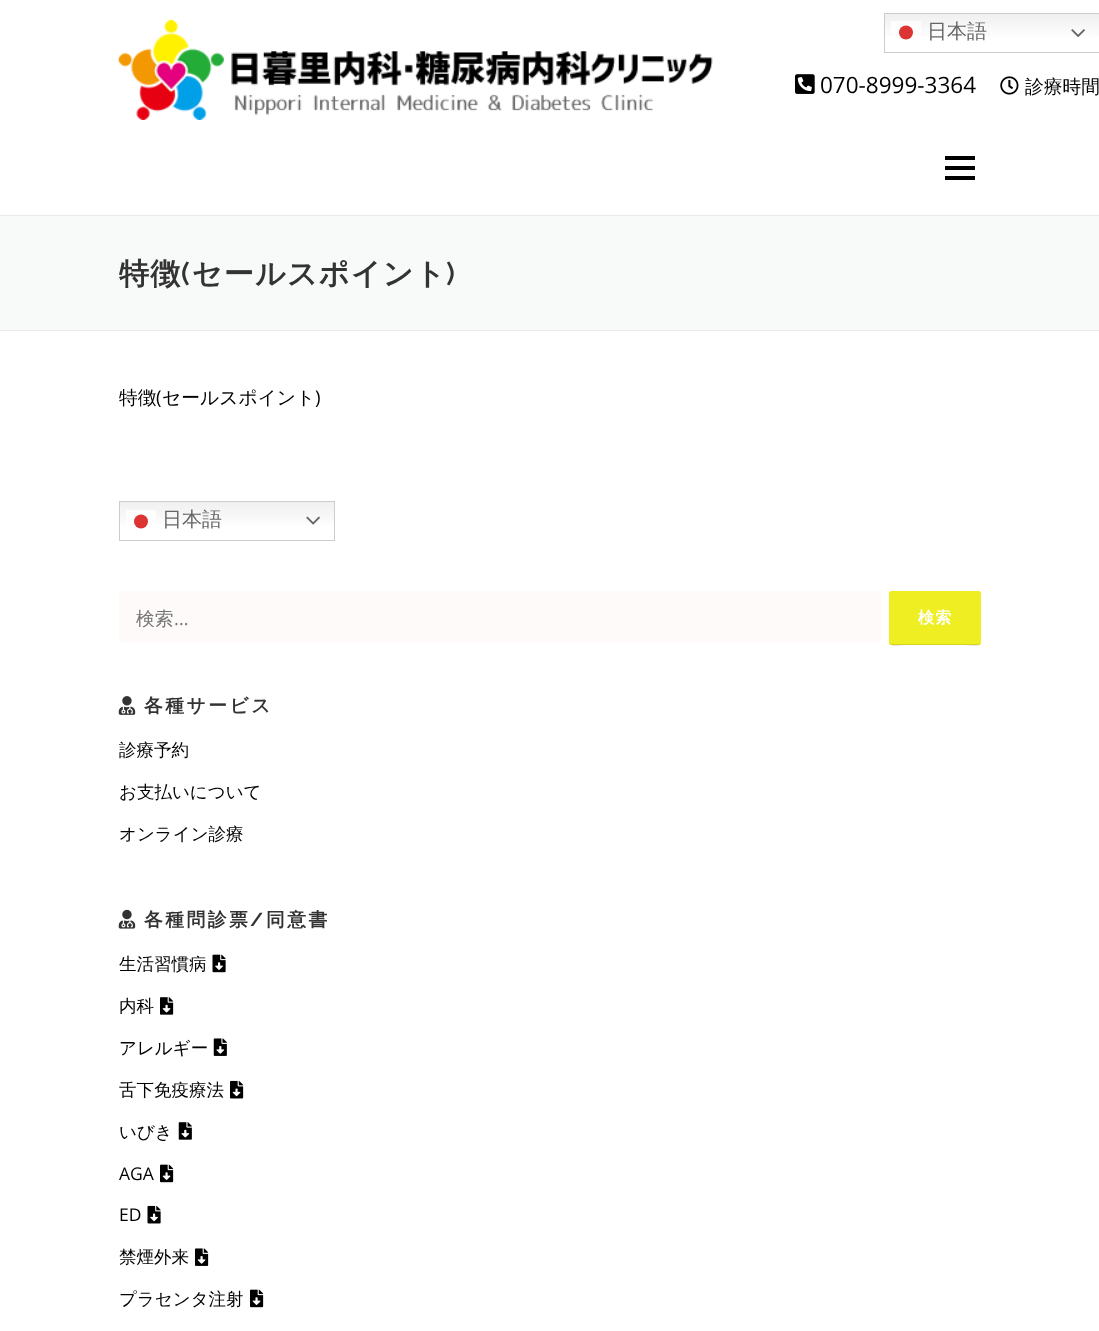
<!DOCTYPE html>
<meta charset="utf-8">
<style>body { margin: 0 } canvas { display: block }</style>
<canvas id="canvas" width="1099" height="1331"></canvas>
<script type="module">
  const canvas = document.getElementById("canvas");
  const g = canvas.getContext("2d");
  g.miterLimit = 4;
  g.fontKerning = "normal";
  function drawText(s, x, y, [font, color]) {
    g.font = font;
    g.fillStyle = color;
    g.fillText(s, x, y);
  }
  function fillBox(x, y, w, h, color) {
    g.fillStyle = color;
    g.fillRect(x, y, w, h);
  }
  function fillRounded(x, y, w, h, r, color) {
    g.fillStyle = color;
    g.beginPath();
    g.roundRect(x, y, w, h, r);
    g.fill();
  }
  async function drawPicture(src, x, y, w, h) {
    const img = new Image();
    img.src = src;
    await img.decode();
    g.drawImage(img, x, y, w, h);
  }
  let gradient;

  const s1 = ["500 20px WenQuanYi Zen Hei", "#666666"];
  const s2 = ["22.5px Open Sans", "#000000"];
  const s3 = ["500 18.75px WenQuanYi Zen Hei", "#000000"];
  const s4 = ["bold 30px WenQuanYi Zen Hei", "#333333"];
  const s5 = ["600 30px Raleway", "#333333"];
  const s6 = ["18.75px Open Sans", "#000000"];
  const s7 = ["500 18.75px WenQuanYi Zen Hei", "#757575"];
  const s8 = ["18.75px Open Sans", "#757575"];
  const s9 = ["bold 16px WenQuanYi Zen Hei", "#FFFFFF"];
  const s10 = ["bold 18.75px WenQuanYi Zen Hei", "#333333"];
  const s11 = ["500 17.5px WenQuanYi Zen Hei", "#000000"];
  const s12 = ["bold 18.75px Raleway", "#333333"];
  const s13 = ["17.5px Open Sans", "#000000"];

  fillBox(0, 0, 1099, 1331, "#FFFFFF");
  gradient = g.createLinearGradient(992, 12, 992, 53);
  gradient.addColorStop(0, "#EFEFEF");
  gradient.addColorStop(0.7, "#FFFFFF");
  g.fillStyle = gradient;
  g.fillRect(885, 14, 214, 22);
  gradient = g.createLinearGradient(992, 12, 992, 53);
  gradient.addColorStop(0, "#FCFCFC");
  gradient.addColorStop(0.7, "#FFFFFF");
  g.fillStyle = gradient;
  g.fillRect(891, 21, 30, 13);
  g.strokeStyle = "#CCCCCC";
  g.strokeRect(884.5, 13.5, 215, 39);
  g.fillStyle = "#DC3333";
  g.beginPath();
  g.arc(906, 32.5, 7, 0, Math.PI * 2);
  g.fill();
  drawText("日本語", 927, 38, s1);
  await drawPicture("pic1.png", 1071, 29, 14, 9);
  await drawPicture("pic2.png", 795, 74, 20, 20);
  drawText("070-8999-3364", 820, 93, s2);
  await drawPicture("pic3.png", 1000, 76, 19, 19);
  drawText("診療時間", 1025, 93, s3);
  await drawPicture("pic4.png", 118, 20, 595, 100);
  fillBox(945, 166, 30, 4, "#000000");
  fillBox(945, 156, 30, 4, "#000000");
  fillBox(945, 176, 30, 4, "#000000");
  fillBox(0, 216, 1099, 114, "#F8F9F9");
  fillBox(0, 215, 1099, 1, "#E9E9E9");
  fillBox(0, 330, 1099, 1, "#E9E9E9");
  g.letterSpacing = "1.25px";
  drawText("特徴 セールスポイント", 119, 284, s4);
  drawText("(", 181, 284, s5);
  drawText(")", 446, 284, s5);
  g.letterSpacing = "0px";
  drawText("特徴 セールスポイント", 119, 404, s3);
  drawText("(", 156, 404, s6);
  drawText(")", 315, 404, s6);
  gradient = g.createLinearGradient(227, 501, 227, 541);
  gradient.addColorStop(0, "#EFEFEF");
  gradient.addColorStop(0.7, "#FFFFFF");
  g.fillStyle = gradient;
  g.fillRect(120, 502, 214, 23);
  gradient = g.createLinearGradient(227, 501, 227, 541);
  gradient.addColorStop(0, "#FCFCFC");
  gradient.addColorStop(0.7, "#FFFFFF");
  g.fillStyle = gradient;
  g.fillRect(126, 510, 30, 15);
  g.strokeRect(119.5, 501.5, 215, 39);
  g.fillStyle = "#DC3333";
  g.beginPath();
  g.arc(141, 521.5, 7, 0, Math.PI * 2);
  g.fill();
  drawText("日本語", 162, 526, s1);
  await drawPicture("pic5.png", 306, 516, 14, 9);
  fillBox(119, 591, 762, 52, "#FFFAFA");
  drawText("検索", 136, 625, s7);
  drawText("…", 174, 625, s8);
  fillRounded(889, 591, 92, 54, 2.5, "#EEEE22");
  g.fillStyle = "rgba(0, 0, 0, 0.1)";
  g.beginPath();
  g.moveTo(889, 641);
  g.bezierCurveTo(889, 649, 901, 645, 906, 645);
  g.lineTo(964, 645);
  g.bezierCurveTo(969, 645, 981, 649, 981, 641);
  g.bezierCurveTo(981, 643, 980, 644, 979, 644);
  g.lineTo(891, 644);
  g.bezierCurveTo(890, 644, 889, 643, 889, 641);
  g.closePath();
  g.fill();
  g.letterSpacing = "1.25px";
  drawText("検索", 918, 623, s9);
  await drawPicture("pic6.png", 118, 696, 18, 19);
  g.letterSpacing = "2.5px";
  drawText("各種サービス", 144, 712, s10);
  g.letterSpacing = "0px";
  drawText("診療予約", 119, 756, s11);
  drawText("お支払いについて", 119, 798, s11);
  drawText("オンライン診療", 119, 840, s11);
  await drawPicture("pic7.png", 118, 909, 18, 20);
  g.letterSpacing = "2.5px";
  drawText("各種問診票", 144, 926, s10);
  drawText("/", 250, 926, s12);
  drawText("同意書", 266, 926, s10);
  g.letterSpacing = "0px";
  drawText("生活習慣病", 119, 970, s11);
  await drawPicture("pic8.png", 212, 954, 14, 19);
  drawText("内科", 119, 1012, s11);
  await drawPicture("pic9.png", 160, 997, 14, 18);
  drawText("アレルギー", 119, 1054, s11);
  await drawPicture("pic10.png", 213, 1038, 14, 18);
  drawText("舌下免疫療法", 119, 1096, s11);
  await drawPicture("pic11.png", 230, 1080, 14, 19);
  drawText("いびき", 119, 1138, s11);
  await drawPicture("pic12.png", 178, 1122, 14, 18);
  drawText("AGA", 119, 1180, s13);
  await drawPicture("pic13.png", 160, 1164, 14, 19);
  drawText("ED", 119, 1221, s13);
  await drawPicture("pic14.png", 147, 1205, 14, 19);
  drawText("禁煙外来", 119, 1263, s11);
  await drawPicture("pic15.png", 195, 1248, 14, 18);
  drawText("プラセンタ注射", 119, 1305, s11);
  await drawPicture("pic13.png", 250, 1289, 14, 19);
</script>
